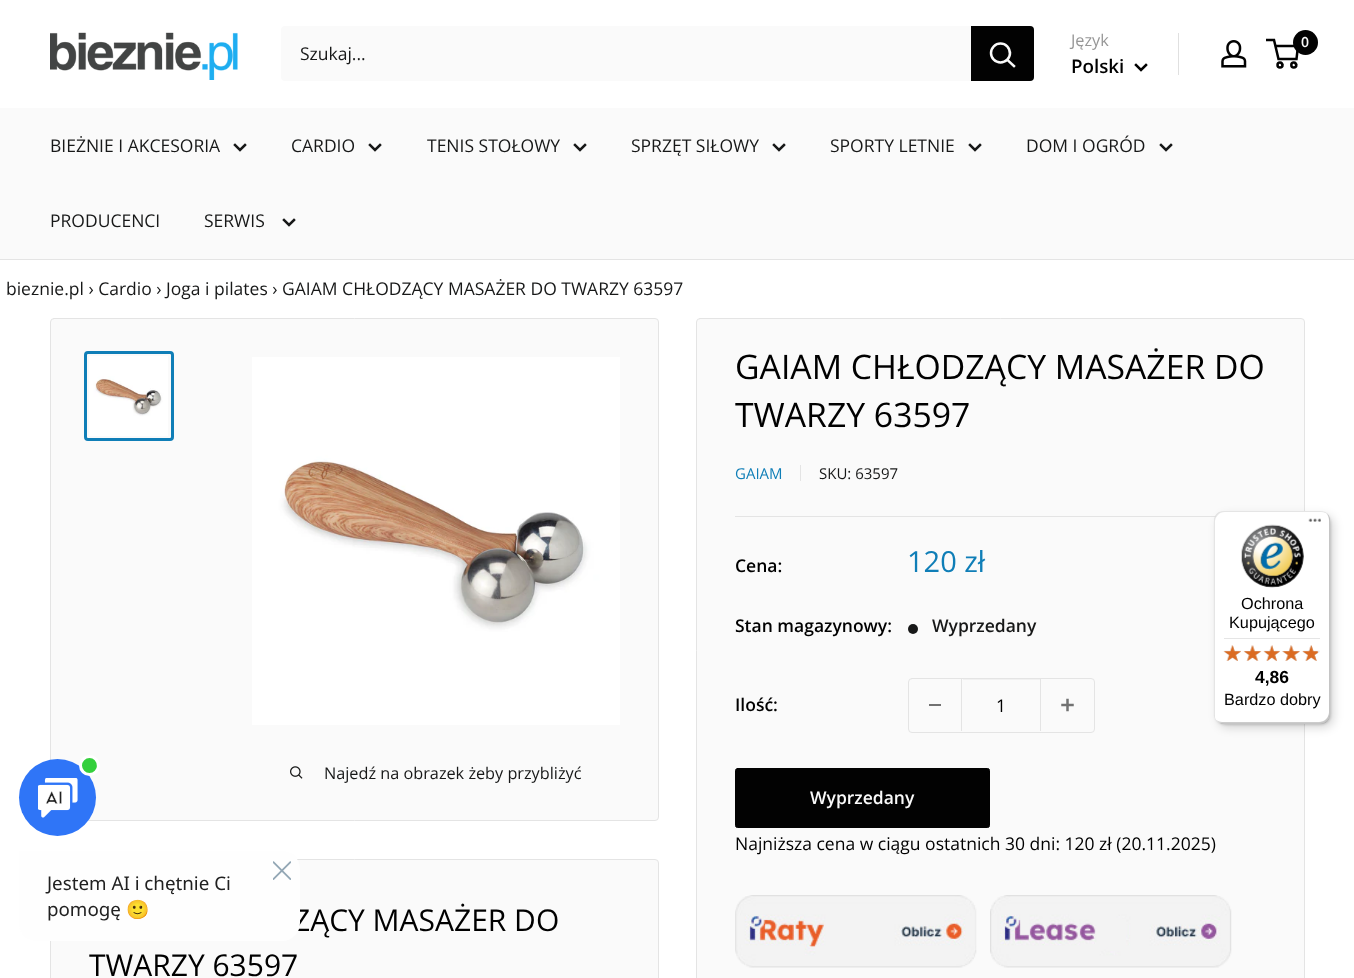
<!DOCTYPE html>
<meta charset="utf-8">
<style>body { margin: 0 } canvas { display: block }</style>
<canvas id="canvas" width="1354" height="978"></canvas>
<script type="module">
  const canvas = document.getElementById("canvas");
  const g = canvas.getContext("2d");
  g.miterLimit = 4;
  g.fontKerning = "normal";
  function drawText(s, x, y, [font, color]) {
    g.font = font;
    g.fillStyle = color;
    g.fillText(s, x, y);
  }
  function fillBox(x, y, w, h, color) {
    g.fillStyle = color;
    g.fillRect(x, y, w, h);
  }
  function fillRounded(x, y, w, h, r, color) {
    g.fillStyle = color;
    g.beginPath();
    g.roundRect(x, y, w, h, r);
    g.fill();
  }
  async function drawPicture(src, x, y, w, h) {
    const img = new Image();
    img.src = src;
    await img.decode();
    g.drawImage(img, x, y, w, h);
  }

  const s1 = ["17.5px Open Sans", "#171818"];
  const s2 = ["16.25px Open Sans", "#979797"];
  const s3 = ["600 18.75px Open Sans", "#000000"];
  const s4 = ["600 14px Open Sans", "#FAFAFA"];
  const s5 = ["16.25px Open Sans", "#171818"];
  const s6 = ["33.75px Open Sans", "#000000"];
  const s7 = ["15px Open Sans", "#0F7EB7"];
  const s8 = ["15px Open Sans", "#171818"];
  const s9 = ["600 17.5px Open Sans", "#000000"];
  const s10 = ["29px Open Sans", "#0F7EB7"];
  const s11 = ["600 17.5px Open Sans", "#171818"];
  const s12 = ["17.5px Open Sans", "#000000"];
  const s13 = ["600 17.5px Open Sans", "#FAFAFA"];
  const s14 = ["30px Open Sans", "#000000"];
  const s15 = ["16.25px Liberation Sans", "#000000"];
  const s16 = ["bold 17.5px Liberation Sans", "#000000"];
  const s17 = ["18.75px Noto Sans", "#212121"];
  const s18 = ["18.75px Noto Color Emoji", "#212121"];

  fillBox(0, 0, 1354, 978, "#FFFFFF");
  await drawPicture("pic1.png", 50, 32, 188, 48);
  fillRounded(281, 26, 753, 55, 4, "#FAFAFA");
  drawText("Szukaj...", 300, 60, s1);
  g.fillStyle = "#020202";
  g.beginPath();
  g.roundRect(971, 26, 63, 55, [0, 4, 4, 0]);
  g.fill();
  g.beginPath();
  g.moveTo(1014, 66);
  g.lineTo(1007.5, 60);
  g.strokeStyle = "#FAFAFA";
  g.lineWidth = 2.5;
  g.lineCap = "square";
  g.stroke();
  g.beginPath();
  g.arc(1000.5, 53, 9.5, 0, Math.PI * 2);
  g.stroke();
  drawText("Język", 1071, 46, s2);
  drawText("Polski", 1071, 73, s3);
  g.beginPath();
  g.moveTo(1146, 65);
  g.lineTo(1141, 70);
  g.lineTo(1136, 65);
  g.strokeStyle = "#020202";
  g.stroke();
  fillBox(1178, 33, 1, 42, "#E0E0E0");
  await drawPicture("pic2.png", 1221, 40, 26, 28);
  g.beginPath();
  g.arc(1280, 65, 2.5, 0, Math.PI * 2);
  g.stroke();
  g.beginPath();
  g.arc(1293.8, 65, 2.5, 0, Math.PI * 2);
  g.stroke();
  g.beginPath();
  g.moveTo(1275.5, 46);
  g.lineTo(1298, 46);
  g.lineTo(1296.5, 59);
  g.lineTo(1278.5, 59);
  g.lineTo(1274, 40);
  g.lineTo(1266, 40);
  g.lineCap = "butt";
  g.stroke();
  g.fillStyle = "#020202";
  g.beginPath();
  g.arc(1305.5, 42.5, 12.5, 0, Math.PI * 2);
  g.fill();
  drawText("0", 1301, 47, s4);
  fillBox(0, 108, 1354, 151, "#FAFAFA");
  fillBox(0, 259, 1354, 1, "#E4E4E4");
  drawText("BIEŻNIE I AKCESORIA", 50, 152, s1);
  g.beginPath();
  g.moveTo(245, 145);
  g.lineTo(240, 150);
  g.lineTo(235, 145);
  g.strokeStyle = "#171818";
  g.lineCap = "square";
  g.stroke();
  drawText("CARDIO", 291, 152, s1);
  g.beginPath();
  g.moveTo(380, 145);
  g.lineTo(375, 150);
  g.lineTo(370, 145);
  g.stroke();
  drawText("TENIS STOŁOWY", 427, 152, s1);
  g.beginPath();
  g.moveTo(585, 145);
  g.lineTo(580, 150);
  g.lineTo(575, 145);
  g.stroke();
  drawText("SPRZĘT SIŁOWY", 631, 152, s1);
  g.beginPath();
  g.moveTo(784, 145);
  g.lineTo(779, 150);
  g.lineTo(774, 145);
  g.stroke();
  drawText("SPORTY LETNIE", 830, 152, s1);
  g.beginPath();
  g.moveTo(980, 145);
  g.lineTo(975, 150);
  g.lineTo(970, 145);
  g.stroke();
  drawText("DOM I OGRÓD", 1026, 152, s1);
  g.beginPath();
  g.moveTo(1171, 145);
  g.lineTo(1166, 150);
  g.lineTo(1161, 145);
  g.stroke();
  drawText("PRODUCENCI", 50, 227, s1);
  drawText("SERWIS", 204, 227, s1);
  g.beginPath();
  g.moveTo(294, 220);
  g.lineTo(289, 225);
  g.lineTo(284, 220);
  g.stroke();
  drawText("bieznie.pl › Cardio › Joga i pilates › GAIAM CHŁODZĄCY MASAŻER DO TWARZY 63597", 6, 295, s1);
  g.fillStyle = "#FAFAFA";
  g.beginPath();
  g.roundRect(50.5, 318.5, 608, 502, 3.5);
  g.fill();
  g.strokeStyle = "#E4E4E4";
  g.lineWidth = 1;
  g.stroke();
  g.beginPath();
  g.roundRect(85.5, 352.5, 87, 87, 2.5);
  g.strokeStyle = "#0F7EB7";
  g.lineWidth = 3;
  g.stroke();
  await drawPicture("pic3.png", 89, 356, 79, 80);
  await drawPicture("pic4.png", 252, 357, 368, 368);
  await drawPicture("pic5.png", 290, 766, 13, 13);
  drawText("Najedź na obrazek żeby przybliżyć", 324, 779, s5);
  g.fillStyle = "#FAFAFA";
  g.beginPath();
  g.roundRect(696.5, 318.5, 608, 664, 3.5);
  g.fill();
  g.strokeStyle = "#E4E4E4";
  g.lineWidth = 1;
  g.stroke();
  drawText("GAIAM CHŁODZĄCY MASAŻER DO", 735, 379, s6);
  drawText("TWARZY 63597", 735, 427, s6);
  drawText("GAIAM", 735, 479, s7);
  fillBox(800, 465, 1, 16, "#E4E4E4");
  drawText("SKU: 63597", 819, 479, s8);
  fillBox(735, 516, 481, 1, "#E4E4E4");
  drawText("Cena:", 735, 572, s9);
  drawText("120 zł", 907, 572, s10);
  drawText("Stan magazynowy:", 735, 632, s9);
  g.fillStyle = "#171818";
  g.beginPath();
  g.arc(913, 629, 5, 0, Math.PI * 2);
  g.fill();
  drawText("Wyprzedany", 932, 632, s11);
  drawText("Ilość:", 735, 711, s9);
  g.beginPath();
  g.roundRect(908.5, 678.5, 186, 54, 3.5);
  g.stroke();
  fillBox(929, 704, 12, 2, "#727272");
  fillBox(963, 679, 77, 1, "#F1F1F1");
  fillBox(1040, 679, 1, 52, "#E4E4E4");
  fillBox(961, 679, 1, 52, "#E4E4E4");
  drawText("1", 996, 712, s12);
  await drawPicture("pic6.png", 1061, 698, 13, 14);
  g.fillStyle = "#020202";
  g.beginPath();
  g.roundRect(735.5, 768.5, 254, 59, 2);
  g.fill();
  g.strokeStyle = "#020202";
  g.stroke();
  drawText("Wyprzedany", 810, 804, s13);
  drawText("Najniższa cena w ciągu ostatnich 30 dni: 120 zł (20.11.2025)", 735, 850, s12);
  await drawPicture("pic7.png", 735, 895, 242, 73);
  await drawPicture("pic8.png", 990, 895, 242, 73);
  g.fillStyle = "#FAFAFA";
  g.beginPath();
  g.roundRect(50.5, 859.5, 608, 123, 3.5);
  g.fill();
  g.strokeStyle = "#E4E4E4";
  g.stroke();
  drawText("ZĄCY MASAŻER DO", 293, 931, s14);
  drawText("TWARZY 63597", 89, 976, s14);
  g.fillStyle = "rgba(0, 0, 0, 0.15)";
  g.filter = "blur(5px)";
  g.beginPath();
  g.roundRect(1218, 515, 116, 213, 10);
  g.fill();
  g.filter = "none";
  g.filter = "blur(1px)";
  g.beginPath();
  g.roundRect(1215, 513, 116, 212, 10);
  g.fill();
  g.filter = "none";
  fillRounded(1214, 511, 116, 213, 10, "#FFFFFF");
  g.fillStyle = "rgba(0, 0, 0, 0.1)";
  g.beginPath();
  g.moveTo(1225, 512);
  g.lineTo(1321, 512);
  g.bezierCurveTo(1324, 512, 1326, 513, 1328, 514);
  g.bezierCurveTo(1326, 512, 1323, 511, 1320, 511);
  g.lineTo(1224, 511);
  g.bezierCurveTo(1218, 511, 1214, 515, 1214, 521);
  g.lineTo(1214, 714);
  g.bezierCurveTo(1214, 716, 1215, 719, 1216, 720);
  g.bezierCurveTo(1215, 719, 1215, 717, 1215, 715);
  g.lineTo(1215, 522);
  g.bezierCurveTo(1215, 517, 1219, 512, 1225, 512);
  g.closePath();
  g.fill();
  g.fillStyle = "rgba(0, 0, 0, 0.2)";
  g.beginPath();
  g.moveTo(1216, 720);
  g.bezierCurveTo(1218, 722, 1221, 724, 1224, 724);
  g.lineTo(1320, 724);
  g.bezierCurveTo(1326, 724, 1330, 720, 1330, 714);
  g.lineTo(1330, 521);
  g.bezierCurveTo(1330, 518, 1329, 515, 1327, 513);
  g.bezierCurveTo(1328, 515, 1329, 517, 1329, 520);
  g.lineTo(1329, 712);
  g.bezierCurveTo(1329, 718, 1324, 722, 1319, 722);
  g.lineTo(1222, 722);
  g.bezierCurveTo(1220, 722, 1218, 721, 1216, 720);
  g.closePath();
  g.fill();
  g.fillStyle = "rgba(50, 50, 50, 0.2)";
  g.beginPath();
  g.moveTo(1218, 722);
  g.bezierCurveTo(1219, 723, 1222, 724, 1224, 724);
  g.lineTo(1320, 724);
  g.bezierCurveTo(1326, 724, 1330, 720, 1330, 714);
  g.lineTo(1330, 521);
  g.bezierCurveTo(1330, 518, 1329, 515, 1326, 513);
  g.bezierCurveTo(1328, 515, 1329, 518, 1329, 520);
  g.lineTo(1329, 713);
  g.bezierCurveTo(1329, 719, 1325, 723, 1319, 723);
  g.lineTo(1223, 723);
  g.bezierCurveTo(1221, 723, 1219, 723, 1218, 722);
  g.closePath();
  g.fill();
  g.fillStyle = "rgba(255, 255, 255, 0.3)";
  g.beginPath();
  g.moveTo(1216, 720);
  g.bezierCurveTo(1218, 723, 1221, 724, 1224, 724);
  g.lineTo(1320, 724);
  g.bezierCurveTo(1326, 724, 1330, 720, 1330, 714);
  g.lineTo(1330, 521);
  g.bezierCurveTo(1330, 515, 1326, 511, 1320, 511);
  g.lineTo(1319, 511);
  g.bezierCurveTo(1325, 511, 1329, 515, 1329, 521);
  g.lineTo(1329, 713);
  g.bezierCurveTo(1329, 719, 1325, 723, 1319, 723);
  g.lineTo(1223, 723);
  g.bezierCurveTo(1221, 723, 1218, 722, 1216, 720);
  g.closePath();
  g.fill();
  await drawPicture("pic9.png", 1308, 518, 13, 4);
  await drawPicture("pic10.png", 1241, 524, 63, 64);
  drawText("Ochrona", 1241, 609, s15);
  drawText("Kupującego", 1229, 628, s15);
  fillBox(1224, 638, 96, 1, "#E5E5E5");
  await drawPicture("pic16.png", 1224, 645, 17, 16);
  await drawPicture("pic11.png", 1223, 645, 18, 16);
  await drawPicture("pic17.png", 1244, 645, 17, 16);
  await drawPicture("pic12.png", 1243, 645, 19, 16);
  await drawPicture("pic18.png", 1264, 645, 16, 16);
  await drawPicture("pic13.png", 1263, 645, 17, 16);
  await drawPicture("pic19.png", 1282, 645, 18, 16);
  await drawPicture("pic14.png", 1282, 645, 18, 16);
  await drawPicture("pic20.png", 1303, 645, 17, 16);
  await drawPicture("pic15.png", 1302, 645, 16, 16);
  drawText("4,86", 1255, 683, s16);
  drawText("Bardzo dobry", 1224, 705, s15);
  g.fillStyle = "#2F75F7";
  g.beginPath();
  g.arc(57.5, 797.5, 38.5, 0, Math.PI * 2);
  g.fill();
  g.fillStyle = "#35D03D";
  g.beginPath();
  g.arc(89.5, 765.5, 9, 0, Math.PI * 2);
  g.fill();
  g.strokeStyle = "#FFFFFF";
  g.lineWidth = 3;
  g.stroke();
  await drawPicture("pic21.png", 38, 778, 40, 40);
  g.fillStyle = "#FEFEFE";
  g.beginPath();
  g.roundRect(19, 851, 281, 90, [0, 18, 18, 18]);
  g.fill();
  await drawPicture("pic22.png", 273, 861, 18, 19);
  drawText("Jestem AI i chętnie Ci", 47, 890, s17);
  drawText("pomogę", 47, 916, s17);
  drawText("🙂", 126, 916, s18);
</script>
